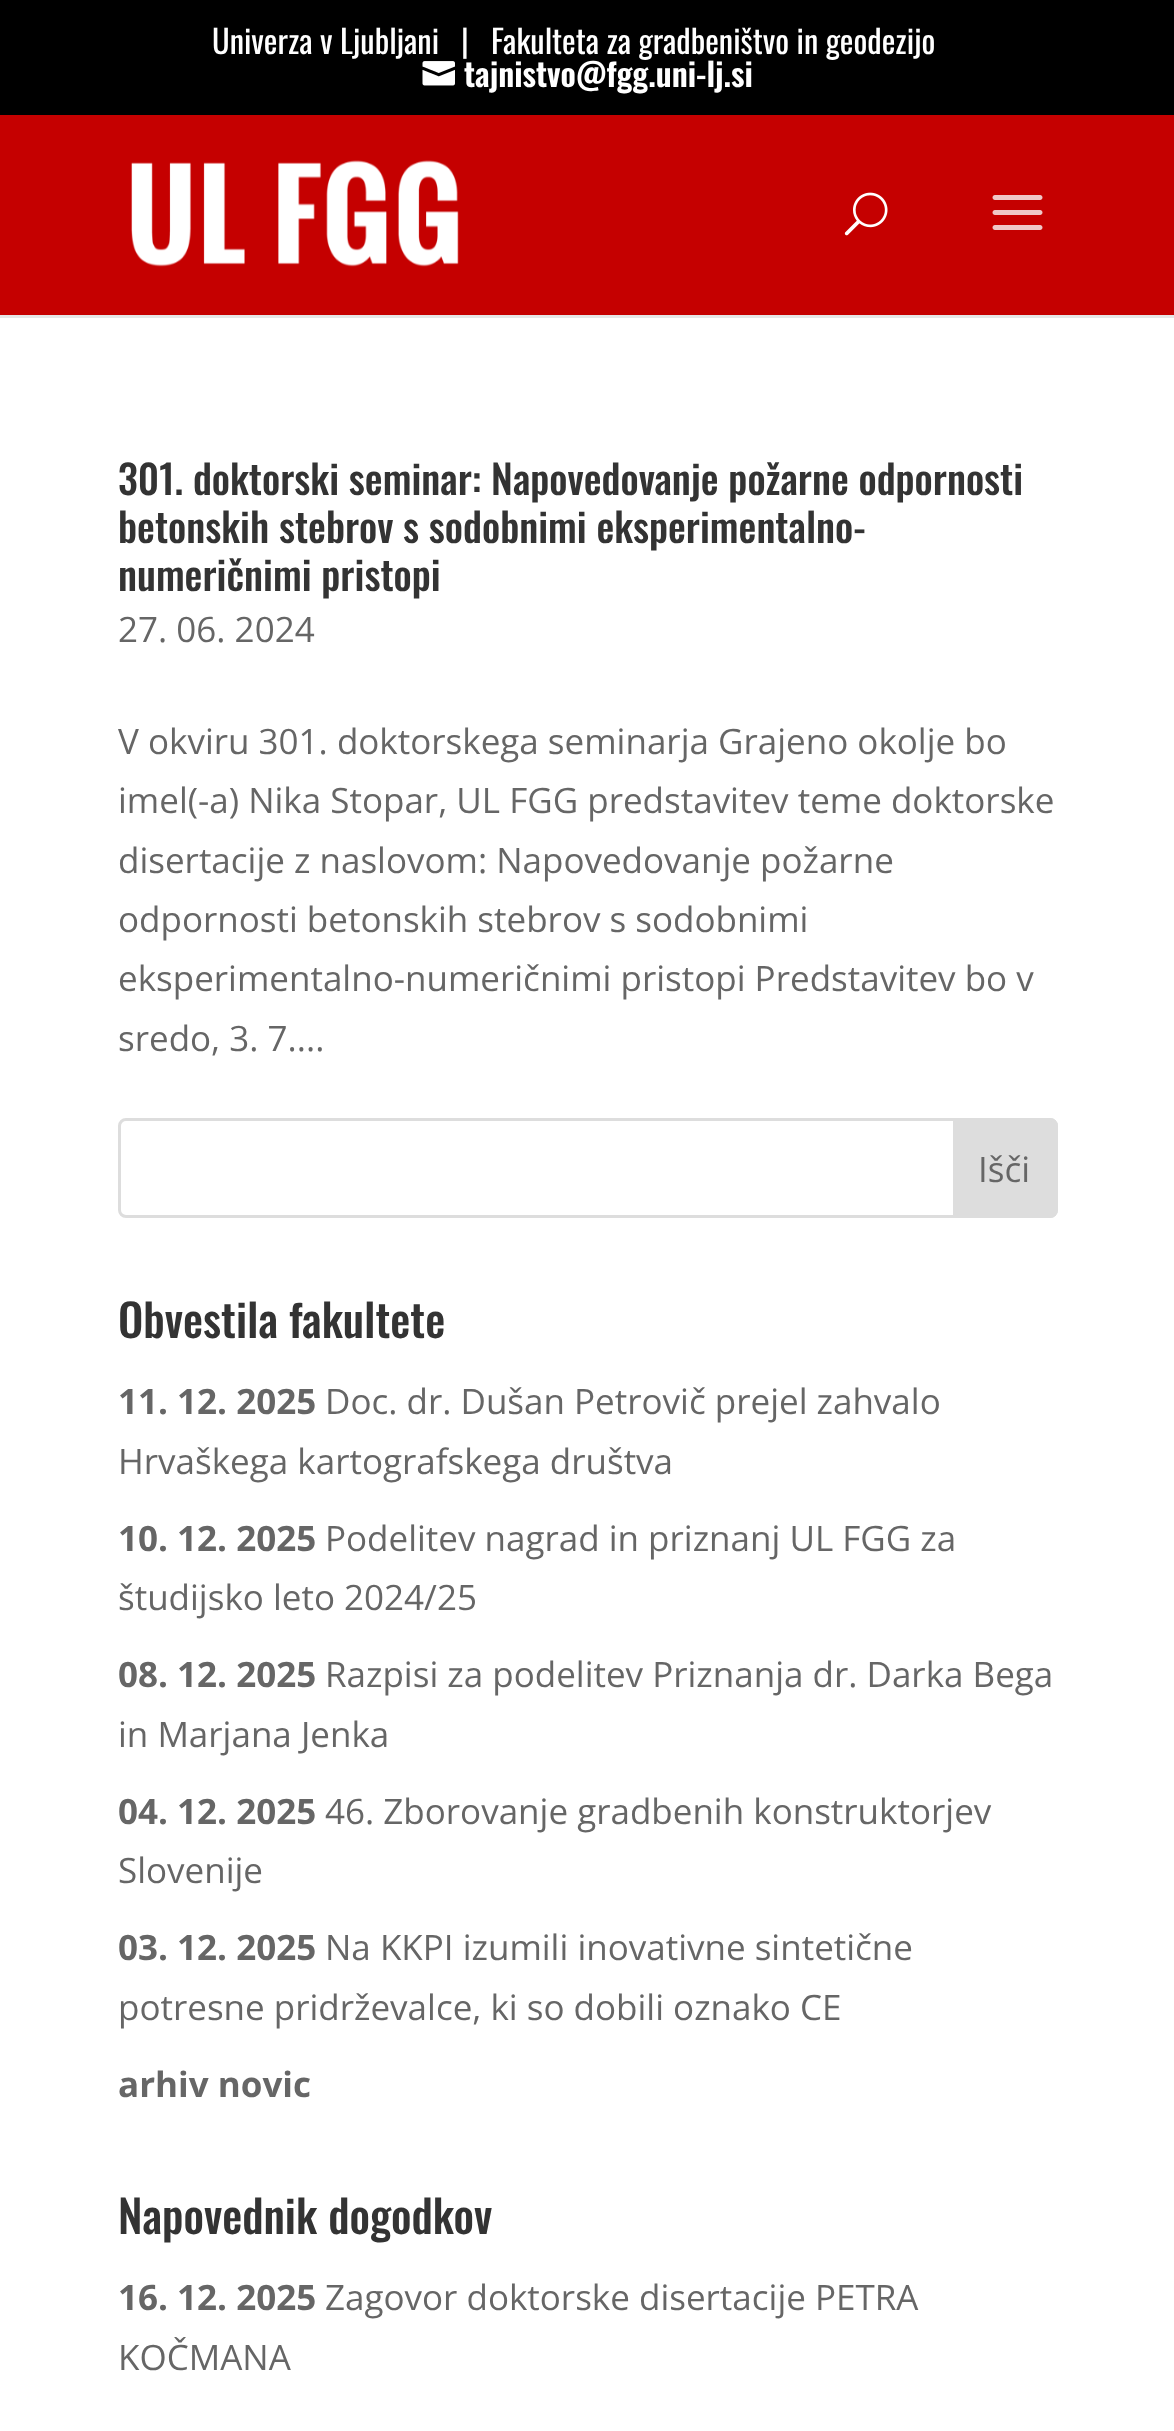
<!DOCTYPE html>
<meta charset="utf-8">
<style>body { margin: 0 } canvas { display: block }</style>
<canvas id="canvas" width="1174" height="2431"></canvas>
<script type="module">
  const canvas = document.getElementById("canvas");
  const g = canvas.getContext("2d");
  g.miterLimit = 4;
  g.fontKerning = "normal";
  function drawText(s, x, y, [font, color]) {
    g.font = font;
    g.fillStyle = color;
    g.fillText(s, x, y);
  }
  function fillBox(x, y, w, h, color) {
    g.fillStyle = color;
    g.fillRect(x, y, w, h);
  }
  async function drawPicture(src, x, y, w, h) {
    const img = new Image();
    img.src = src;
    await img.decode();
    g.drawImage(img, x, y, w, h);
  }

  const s1 = ["32.5px Oswald", "#FFFFFF"];
  const s2 = ["600 32.5px Oswald", "#FFFFFF"];
  const s3 = ["500 40px Oswald", "#333333"];
  const s4 = ["35px Open Sans", "#666666"];
  const s5 = ["500 45px Oswald", "#333333"];
  const s6 = ["bold 35px Open Sans", "#666666"];

  fillBox(0, 0, 1174, 2431, "#FFFFFF");
  fillBox(0, 0, 1174, 115, "#000000");
  drawText("Univerza v Ljubljani", 212, 54, s1);
  drawText("|", 461, 54, s1);
  drawText("Fakulteta za gradbeništvo in geodezijo", 491, 54, s1);
  await drawPicture("pic1.png", 422, 61, 33, 25);
  drawText("tajnistvo@fgg.uni-lj.si", 464, 87, s2);
  fillBox(0, 315, 1174, 3, "#E6E6E6");
  fillBox(0, 115, 1174, 200, "#C50000");
  await drawPicture("pic2.png", 131, 160, 328, 107);
  await drawPicture("pic3.png", 844, 192, 44, 44);
  await drawPicture("pic4.png", 992, 195, 51, 35);
  drawText("301. doktorski seminar: Napovedovanje požarne odpornosti", 118, 495, s3);
  drawText("betonskih stebrov s sodobnimi eksperimentalno-", 118, 543, s3);
  drawText("numeričnimi pristopi", 118, 591, s3);
  drawText("27. 06. 2024", 118, 642, s4);
  drawText("V okviru 301. doktorskega seminarja Grajeno okolje bo", 118, 754, s4);
  drawText("imel(-a) Nika Stopar, UL FGG predstavitev teme doktorske", 118, 813, s4);
  drawText("disertacije z naslovom: Napovedovanje požarne", 118, 873, s4);
  drawText("odpornosti betonskih stebrov s sodobnimi", 118, 932, s4);
  drawText("eksperimentalno-numeričnimi pristopi Predstavitev bo v", 118, 991, s4);
  drawText("sredo, 3. 7....", 118, 1051, s4);
  g.beginPath();
  g.roundRect(119.5, 1119.5, 937, 97, 6.5);
  g.strokeStyle = "#DDDDDD";
  g.lineWidth = 3;
  g.stroke();
  g.fillStyle = "#DDDDDD";
  g.beginPath();
  g.roundRect(954.5, 1119.5, 102, 97, [0, 6.5, 6.5, 0]);
  g.fill();
  g.stroke();
  drawText("Išči", 978, 1182, s4);
  drawText("Obvestila fakultete", 118, 1338, s5);
  drawText("11. 12. 2025", 118, 1414, s6);
  drawText("Doc. dr. Dušan Petrovič prejel zahvalo", 325, 1414, s4);
  drawText("Hrvaškega kartografskega društva", 118, 1474, s4);
  drawText("10. 12. 2025", 118, 1551, s6);
  drawText("Podelitev nagrad in priznanj UL FGG za", 325, 1551, s4);
  drawText("študijsko leto 2024/25", 118, 1610, s4);
  drawText("08. 12. 2025", 118, 1687, s6);
  drawText("Razpisi za podelitev Priznanja dr. Darka Bega", 325, 1687, s4);
  drawText("in Marjana Jenka", 118, 1747, s4);
  drawText("04. 12. 2025", 118, 1824, s6);
  drawText("46. Zborovanje gradbenih konstruktorjev", 325, 1824, s4);
  drawText("Slovenije", 118, 1883, s4);
  drawText("03. 12. 2025", 118, 1960, s6);
  drawText("Na KKPI izumili inovativne sintetične", 325, 1960, s4);
  drawText("potresne pridrževalce, ki so dobili oznako CE", 118, 2020, s4);
  drawText("arhiv novic", 118, 2097, s6);
  drawText("Napovednik dogodkov", 118, 2234, s5);
  drawText("16. 12. 2025", 118, 2310, s6);
  drawText("Zagovor doktorske disertacije PETRA", 325, 2310, s4);
  drawText("KOČMANA", 118, 2370, s4);
</script>
